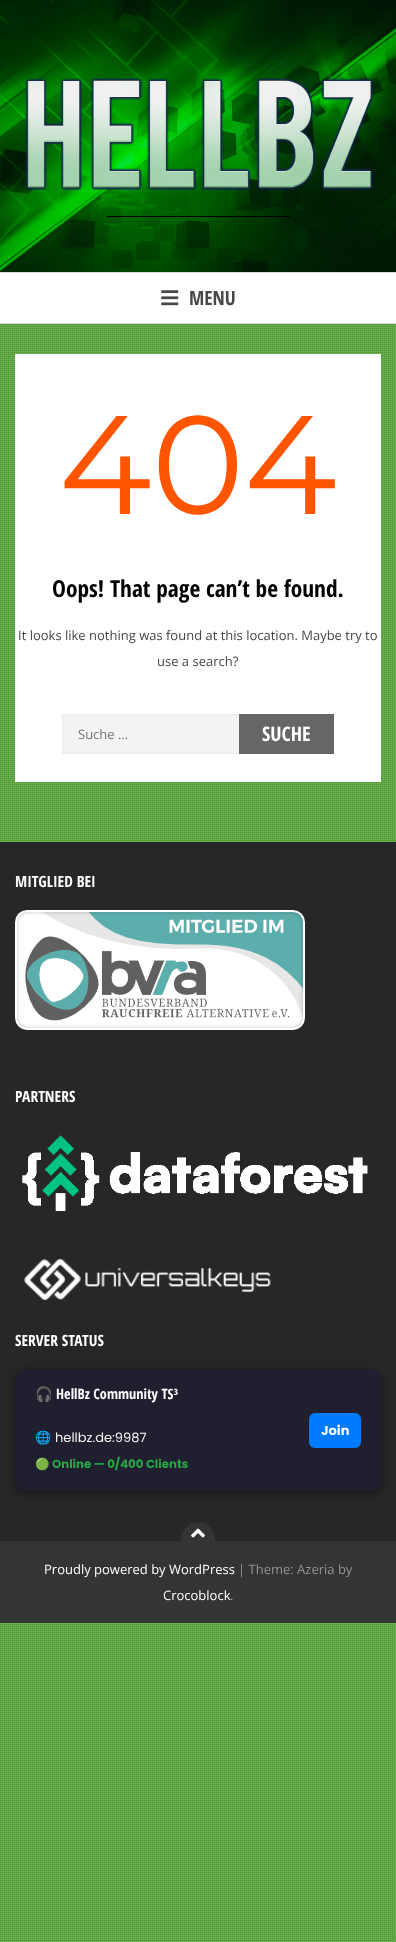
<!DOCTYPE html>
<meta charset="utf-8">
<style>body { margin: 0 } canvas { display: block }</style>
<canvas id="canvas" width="396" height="1942"></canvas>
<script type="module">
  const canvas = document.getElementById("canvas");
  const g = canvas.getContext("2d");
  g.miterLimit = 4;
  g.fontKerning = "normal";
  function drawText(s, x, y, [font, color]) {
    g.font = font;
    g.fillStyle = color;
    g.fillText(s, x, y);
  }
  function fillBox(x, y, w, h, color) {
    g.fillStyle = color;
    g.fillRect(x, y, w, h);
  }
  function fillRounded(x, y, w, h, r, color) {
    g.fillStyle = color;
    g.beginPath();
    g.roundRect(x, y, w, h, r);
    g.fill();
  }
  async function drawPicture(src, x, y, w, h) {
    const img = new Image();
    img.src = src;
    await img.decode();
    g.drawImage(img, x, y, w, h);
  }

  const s1 = ["bold 19.5px Open Sans Condensed", "#474747"];
  const s2 = ["140px Montserrat Alternates", "#FF5400"];
  const s3 = ["bold 23.4px Open Sans Condensed", "#000000"];
  const s4 = ["13px Open Sans", "#474747"];
  const s5 = ["13px Open Sans", "#757575"];
  const s6 = ["bold 20px Open Sans Condensed", "#FFFFFF"];
  const s7 = ["bold 15.5px Open Sans Condensed", "#FFFFFF"];
  const s8 = ["bold 14.25px Noto Color Emoji", "#FFFFFF"];
  const s9 = ["bold 14.25px Open Sans Condensed", "#FFFFFF"];
  const s10 = ["13px Noto Color Emoji", "#F5F5F5"];
  const s11 = ["13px Poppins", "#F5F5F5"];
  const s12 = ["bold 11.75px Noto Color Emoji", "#28A745"];
  const s13 = ["bold 11.75px Poppins", "#28A745"];
  const s14 = ["bold 13px Poppins", "#FFFFFF"];
  const s15 = ["13px Open Sans", "#FFFFFF"];
  const s16 = ["13px Open Sans", "#939393"];

  fillBox(0, 0, 396, 1942, "#2A9B04");
  await drawPicture("pic1.png", 0, 324, 396, 1618);
  await drawPicture("pic2.png", 0, 0, 396, 272);
  await drawPicture("pic3.png", 25, 78, 349, 113);
  fillBox(107, 216, 183, 1, "#000000");
  fillBox(0, 273, 396, 50, "#FFFFFF");
  fillBox(0, 272, 396, 1, "#D9D9D9");
  fillBox(0, 323, 396, 1, "#D9D9D9");
  await drawPicture("pic4.png", 161, 290, 18, 16);
  drawText("MENU", 189, 305, s1);
  fillBox(15, 354, 366, 428, "#FFFFFF");
  drawText("404", 59, 514, s2);
  drawText("Oops! That page can’t be found.", 52, 597, s3);
  drawText("It looks like nothing was found at this location. Maybe try to", 18, 640, s4);
  drawText("use a search?", 157, 666, s4);
  fillBox(63, 715, 176, 38, "#F3F3F3");
  g.strokeStyle = "#EBEBEB";
  g.strokeRect(62.5, 714.5, 183, 39);
  drawText("Suche …", 78, 739, s5);
  fillBox(239, 714, 95, 40, "#686665");
  drawText("SUCHE", 262, 741, s6);
  fillBox(0, 1541, 396, 82, "#343434");
  fillBox(0, 842, 396, 699, "#272727");
  drawText("MITGLIED BEI", 15, 887, s7);
  await drawPicture("pic5.png", 15, 910, 290, 120);
  drawText("PARTNERS", 15, 1102, s7);
  await drawPicture("pic6.png", 22, 1135, 346, 76);
  await drawPicture("pic7.png", 24, 1258, 247, 42);
  drawText("SERVER STATUS", 15, 1346, s7);
  g.fillStyle = "rgba(0, 0, 0, 0.4)";
  g.filter = "blur(5px)";
  g.beginPath();
  g.roundRect(15, 1372, 366, 121, 10);
  g.fill();
  g.filter = "none";
  fillRounded(15, 1370, 366, 121, 10, "#1F1F2F");
  drawText("🎧", 35, 1399, s8);
  drawText("HellBz Community TS³", 56, 1399, s9);
  drawText("🌐", 35, 1442, s10);
  drawText("hellbz.de:9987", 55, 1442, s11);
  drawText("🟢", 35, 1468, s12);
  drawText("Online — 0/400 Clients", 52, 1468, s13);
  fillRounded(309, 1413, 52, 35, 6, "#007BFF");
  drawText("Join", 321, 1435, s14);
  g.fillStyle = "#343434";
  g.beginPath();
  g.arc(198, 1539, 17, 0, Math.PI * 2);
  g.fill();
  await drawPicture("pic8.png", 191, 1528, 14, 10);
  drawText("Proudly powered by WordPress", 44, 1574, s15);
  drawText("| Theme: Azeria by", 238, 1574, s16);
  drawText("Crocoblock", 163, 1600, s15);
  drawText(".", 230, 1600, s16);
</script>
